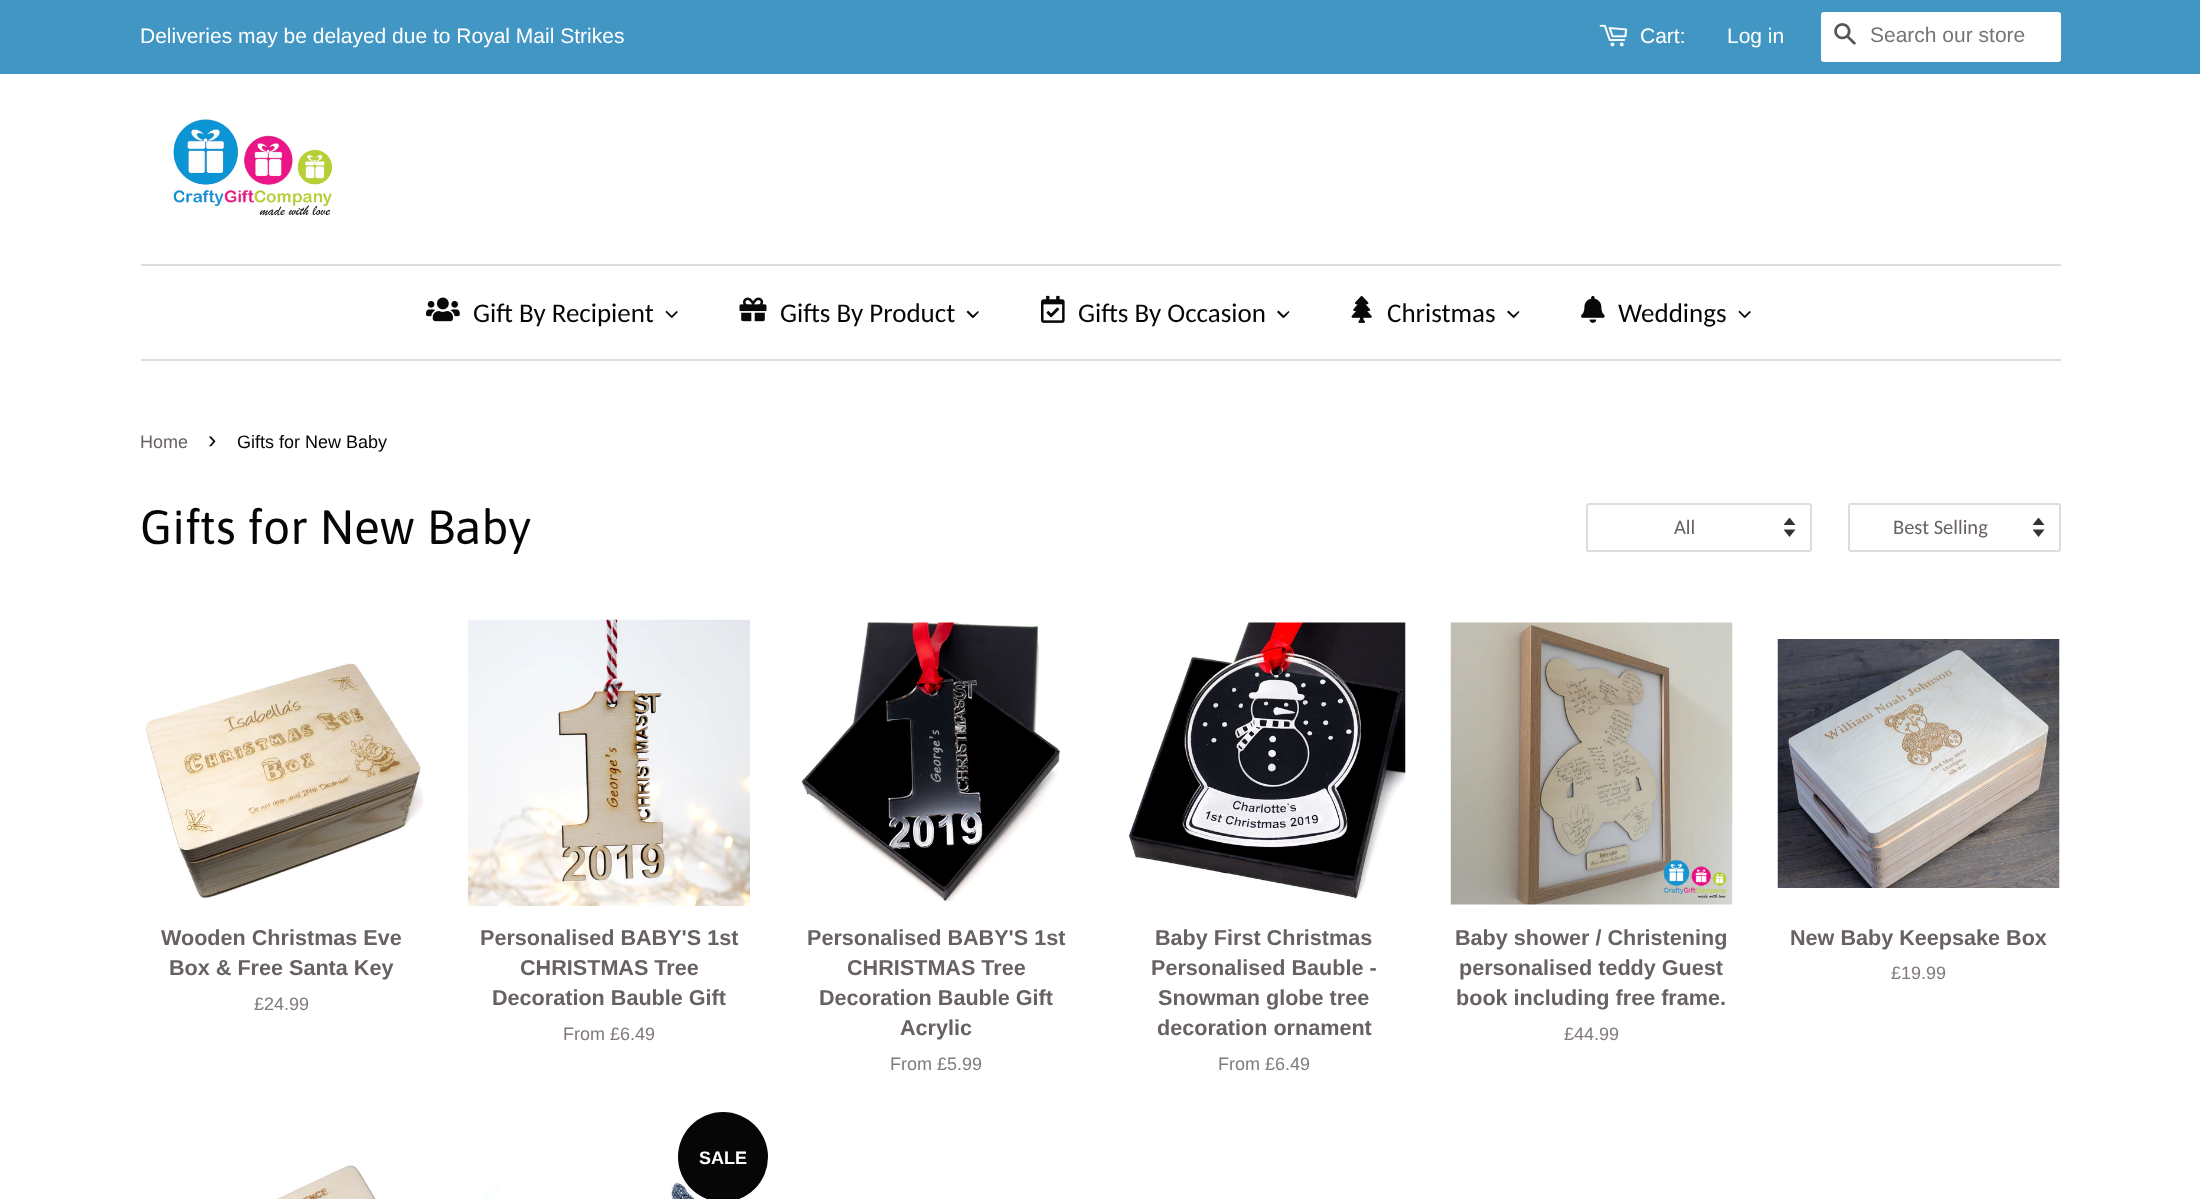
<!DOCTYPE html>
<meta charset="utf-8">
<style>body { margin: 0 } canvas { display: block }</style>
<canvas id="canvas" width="2200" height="1199"></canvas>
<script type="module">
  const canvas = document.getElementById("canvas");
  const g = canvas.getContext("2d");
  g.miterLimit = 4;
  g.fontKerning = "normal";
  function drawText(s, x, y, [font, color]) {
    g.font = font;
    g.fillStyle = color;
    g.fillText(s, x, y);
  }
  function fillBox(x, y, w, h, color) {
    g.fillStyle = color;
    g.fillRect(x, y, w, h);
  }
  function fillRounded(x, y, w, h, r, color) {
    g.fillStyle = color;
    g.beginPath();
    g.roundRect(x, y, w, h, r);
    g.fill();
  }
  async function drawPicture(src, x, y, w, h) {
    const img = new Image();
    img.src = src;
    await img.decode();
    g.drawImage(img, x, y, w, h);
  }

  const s1 = ["21px Liberation Sans", "#FFFFFF"];
  const s2 = ["21px Liberation Sans", "#757575"];
  const s3 = ["27px Carlito", "#070607"];
  const s4 = ["18px Liberation Sans", "#686161"];
  const s5 = ["25px Liberation Sans", "#070607"];
  const s6 = ["18px Liberation Sans", "#070607"];
  const s7 = ["48px Asap", "#070607"];
  const s8 = ["20.5px Carlito", "#686161"];
  const s9 = ["bold 21.6px Liberation Sans", "#686161"];
  const s10 = ["18px Liberation Sans", "#827A7A"];
  const s11 = ["bold 18px Liberation Sans", "#FFFFFF"];

  fillBox(0, 0, 2200, 1199, "#FFFFFF");
  fillBox(0, 0, 2200, 74, "#4296C3");
  drawText("Deliveries may be delayed due to Royal Mail Strikes", 140, 43, s1);
  await drawPicture("pic1.png", 1599, 24, 29, 23);
  drawText("Cart:", 1640, 43, s1);
  drawText("Log in", 1727, 43, s1);
  fillRounded(1821, 12, 240, 50, 3, "#FFFFFF");
  await drawPicture("pic2.png", 1834, 23, 22, 22);
  drawText("Search our store", 1870, 42, s2);
  await drawPicture("pic3.png", 173, 118, 163, 98);
  fillBox(141, 264, 1920, 2, "#DDDDDD");
  fillBox(141, 359, 1920, 2, "#DDDDDD");
  await drawPicture("pic4.png", 426, 297, 34, 25);
  drawText("Gift By Recipient", 473, 322, s3);
  g.fillStyle = "#080808";
  g.beginPath();
  g.moveTo(676.5, 311);
  g.lineTo(678, 312);
  g.lineTo(672, 318);
  g.lineTo(671, 316.5);
  g.closePath();
  g.fill();
  g.beginPath();
  g.moveTo(666.5, 310.5);
  g.lineTo(672.5, 316.5);
  g.lineTo(671.5, 318);
  g.lineTo(665.5, 312);
  g.closePath();
  g.fill();
  await drawPicture("pic5.png", 739, 297, 28, 25);
  drawText("Gifts By Product", 780, 322, s3);
  g.fillStyle = "#080808";
  g.beginPath();
  g.moveTo(978, 311);
  g.lineTo(979, 312);
  g.lineTo(973.5, 318);
  g.lineTo(972, 316.5);
  g.closePath();
  g.fill();
  g.beginPath();
  g.moveTo(968, 310.5);
  g.lineTo(974, 316.5);
  g.lineTo(972.5, 318);
  g.lineTo(966.5, 312);
  g.closePath();
  g.fill();
  await drawPicture("pic6.png", 1041, 295, 24, 28);
  drawText("Gifts By Occasion", 1078, 322, s3);
  g.fillStyle = "#080808";
  g.beginPath();
  g.moveTo(1288.5, 311);
  g.lineTo(1289.5, 312);
  g.lineTo(1284, 318);
  g.lineTo(1282.5, 316.5);
  g.closePath();
  g.fill();
  g.beginPath();
  g.moveTo(1278.5, 310.5);
  g.lineTo(1284.5, 316.5);
  g.lineTo(1283, 318);
  g.lineTo(1277, 312);
  g.closePath();
  g.fill();
  await drawPicture("pic7.png", 1351, 295, 21, 28);
  drawText("Christmas", 1387, 322, s3);
  g.fillStyle = "#080808";
  g.beginPath();
  g.moveTo(1518.5, 311);
  g.lineTo(1519.5, 312);
  g.lineTo(1514, 318);
  g.lineTo(1512.5, 316.5);
  g.closePath();
  g.fill();
  g.beginPath();
  g.moveTo(1508.5, 310.5);
  g.lineTo(1514.5, 316.5);
  g.lineTo(1513.5, 318);
  g.lineTo(1507, 312);
  g.closePath();
  g.fill();
  await drawPicture("pic8.png", 1581, 295, 24, 28);
  drawText("Weddings", 1618, 322, s3);
  g.fillStyle = "#080808";
  g.beginPath();
  g.moveTo(1749.5, 311);
  g.lineTo(1751, 312);
  g.lineTo(1745, 318);
  g.lineTo(1744, 316.5);
  g.closePath();
  g.fill();
  g.beginPath();
  g.moveTo(1739.5, 310.5);
  g.lineTo(1745.5, 316.5);
  g.lineTo(1744.5, 318);
  g.lineTo(1738.5, 312);
  g.closePath();
  g.fill();
  drawText("Home", 140, 448, s4);
  drawText("›", 208, 448, s5);
  drawText("Gifts for New Baby", 237, 448, s6);
  drawText("Gifts for New Baby", 140, 544, s7);
  await drawPicture("pic9.png", 1784, 518, 12, 19);
  g.beginPath();
  g.roundRect(1587, 504, 224, 47, 2);
  g.strokeStyle = "#DDDDDD";
  g.lineWidth = 2;
  g.stroke();
  drawText("All", 1674, 534, s8);
  await drawPicture("pic9.png", 2033, 518, 12, 19);
  g.beginPath();
  g.roundRect(1849, 504, 211, 47, 2);
  g.stroke();
  drawText("Best Selling", 1893, 534, s8);
  await drawPicture("pic10.png", 145, 663, 278, 237);
  drawText("Wooden Christmas Eve", 161, 945, s9);
  drawText("Box & Free Santa Key", 169, 975, s9);
  drawText("£24.99", 254, 1010, s10);
  await drawPicture("pic11.png", 468, 619, 282, 287);
  drawText("Personalised BABY'S 1st", 480, 945, s9);
  drawText("CHRISTMAS Tree", 520, 975, s9);
  drawText("Decoration Bauble Gift", 492, 1005, s9);
  drawText("From £6.49", 563, 1040, s10);
  await drawPicture("pic12.png", 800, 622, 260, 280);
  drawText("Personalised BABY'S 1st", 807, 945, s9);
  drawText("CHRISTMAS Tree", 847, 975, s9);
  drawText("Decoration Bauble Gift", 819, 1005, s9);
  drawText("Acrylic", 900, 1035, s9);
  drawText("From £5.99", 890, 1070, s10);
  await drawPicture("pic13.png", 1128, 622, 278, 278);
  drawText("Baby First Christmas", 1155, 945, s9);
  drawText("Personalised Bauble -", 1151, 975, s9);
  drawText("Snowman globe tree", 1158, 1005, s9);
  drawText("decoration ornament", 1157, 1035, s9);
  drawText("From £6.49", 1218, 1070, s10);
  await drawPicture("pic14.png", 1450, 622, 283, 283);
  drawText("Baby shower / Christening", 1455, 945, s9);
  drawText("personalised teddy Guest", 1459, 975, s9);
  drawText("book including free frame.", 1456, 1005, s9);
  drawText("£44.99", 1564, 1040, s10);
  await drawPicture("pic15.png", 1777, 639, 283, 249);
  drawText("New Baby Keepsake Box", 1790, 945, s9);
  drawText("£19.99", 1891, 979, s10);
  await drawPicture("pic16.png", 484, 1182, 214, 17);
  g.fillStyle = "#070607";
  g.beginPath();
  g.arc(723, 1157, 45, 0, Math.PI * 2);
  g.fill();
  drawText("SALE", 699, 1164, s11);
  await drawPicture("pic17.png", 276, 1165, 100, 34);
</script>
